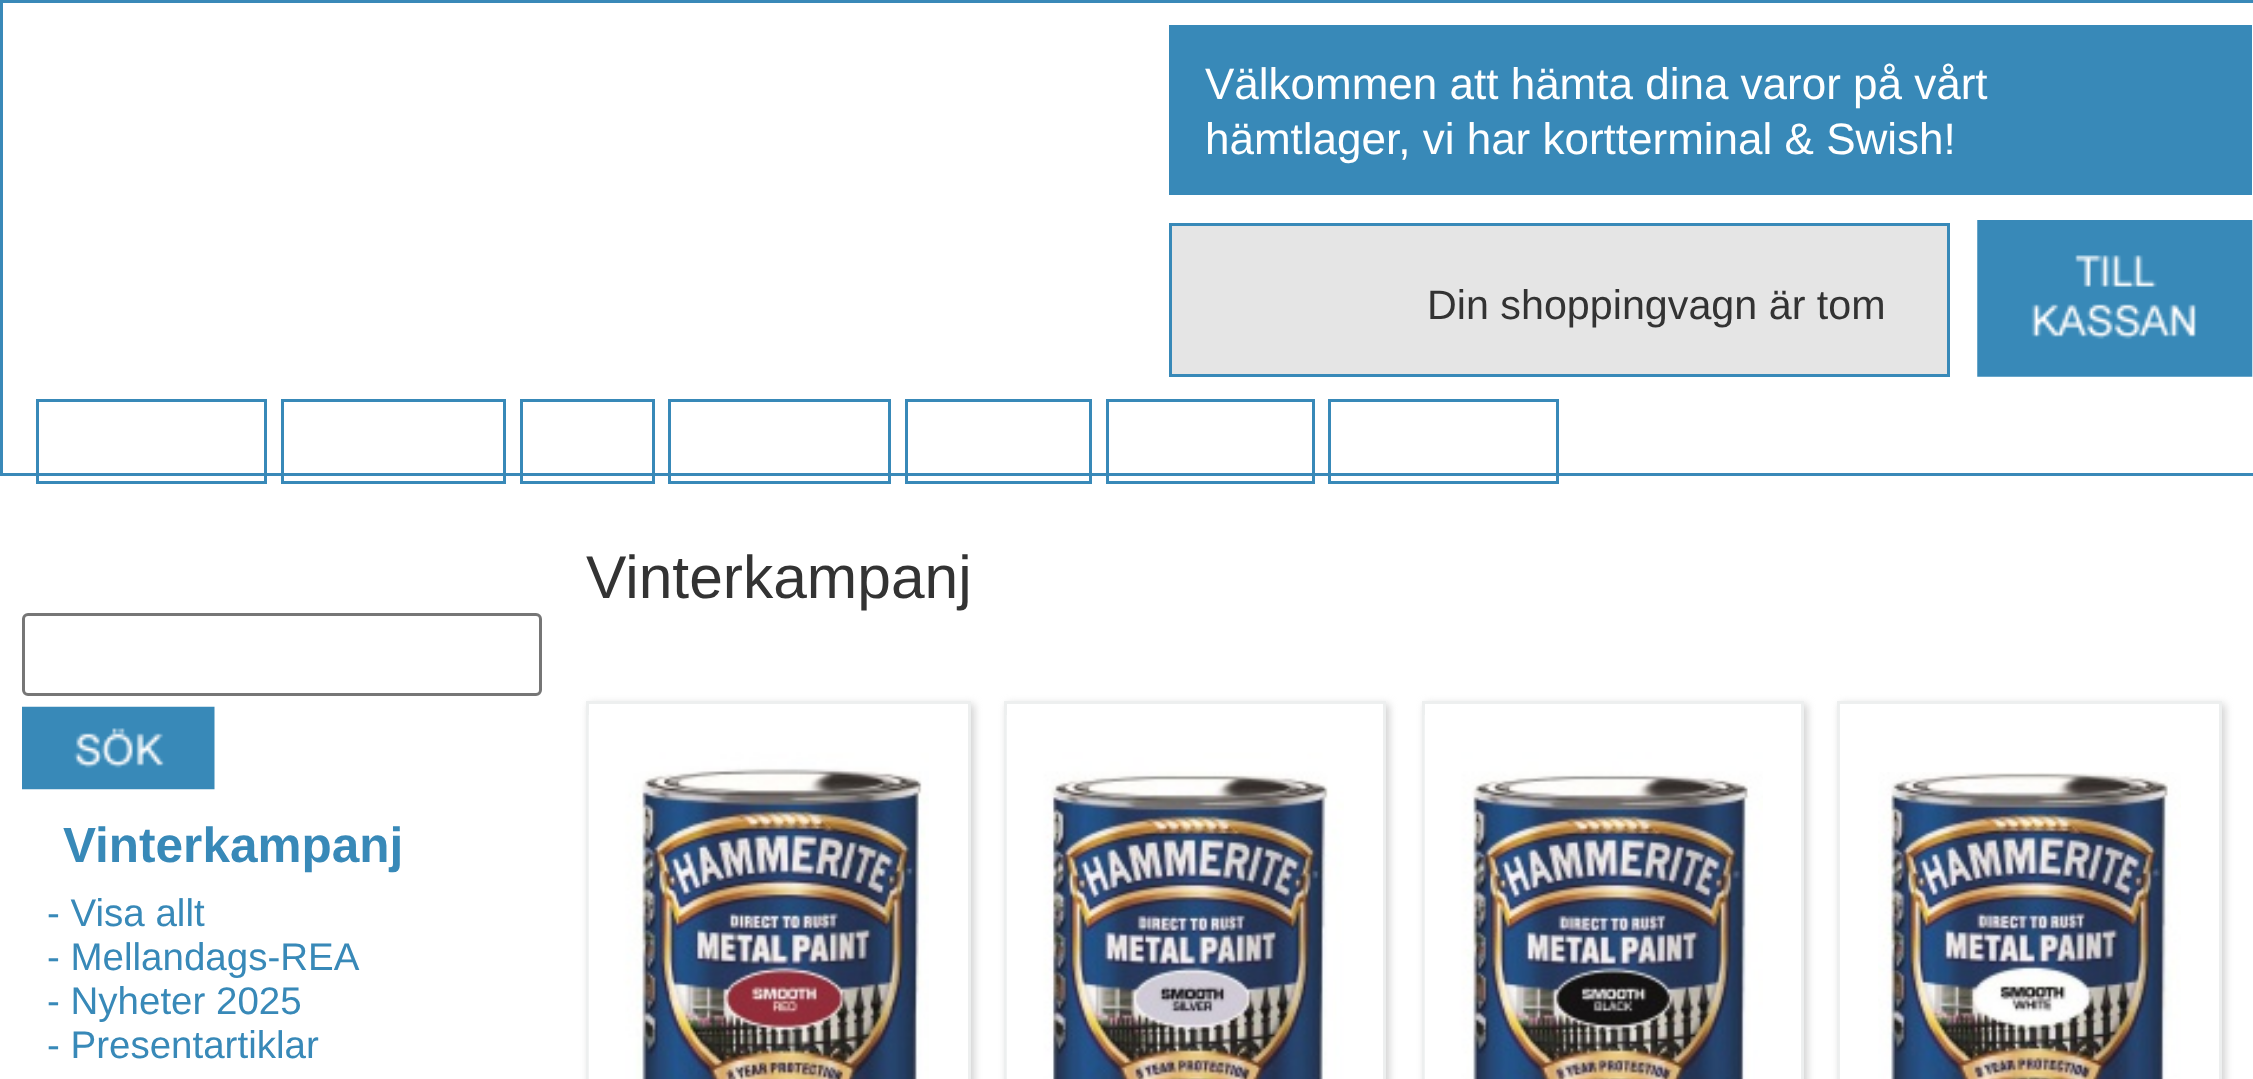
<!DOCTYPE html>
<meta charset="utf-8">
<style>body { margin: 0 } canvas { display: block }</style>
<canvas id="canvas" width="2253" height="1079"></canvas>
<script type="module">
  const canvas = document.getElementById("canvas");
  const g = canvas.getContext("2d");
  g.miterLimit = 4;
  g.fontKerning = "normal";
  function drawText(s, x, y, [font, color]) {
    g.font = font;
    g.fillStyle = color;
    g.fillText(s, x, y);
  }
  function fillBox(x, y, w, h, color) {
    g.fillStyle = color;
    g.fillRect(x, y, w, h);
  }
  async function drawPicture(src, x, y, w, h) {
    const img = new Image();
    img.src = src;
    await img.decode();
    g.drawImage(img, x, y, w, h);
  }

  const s1 = ["44px Liberation Sans", "#FFFFFF"];
  const s2 = ["41.25px Liberation Sans", "#333333"];
  const s3 = ["60.5px Liberation Sans", "#333333"];
  const s4 = ["bold 49.5px Liberation Sans", "#3889B8"];
  const s5 = ["38.5px Liberation Sans", "#3889B8"];

  fillBox(0, 0, 2253, 1079, "#FFFFFF");
  g.strokeStyle = "#3989B8";
  g.lineWidth = 3;
  g.strokeRect(1.5, 1.5, 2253, 473);
  fillBox(1169, 25, 1083, 170, "#3889B8");
  drawText("Välkommen att hämta dina varor på vårt", 1205, 99, s1);
  drawText("hämtlager, vi har kortterminal & Swish!", 1205, 154, s1);
  g.fillStyle = "#E5E5E5";
  g.beginPath();
  g.rect(1170.5, 224.5, 778, 151);
  g.fill();
  g.strokeStyle = "#3889B8";
  g.stroke();
  drawText("Din shoppingvagn är tom", 1427, 319, s2);
  await drawPicture("pic1.png", 1977, 220, 276, 157);
  g.strokeRect(37.5, 400.5, 228, 82);
  g.strokeRect(282.5, 400.5, 222, 82);
  g.strokeRect(521.5, 400.5, 132, 82);
  g.strokeRect(669.5, 400.5, 220, 82);
  g.strokeRect(906.5, 400.5, 184, 82);
  g.strokeRect(1107.5, 400.5, 206, 82);
  g.strokeRect(1329.5, 400.5, 228, 82);
  drawText("Vinterkampanj", 586, 598, s3);
  g.save();
  g.beginPath();
  g.moveTo(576, 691);
  g.lineTo(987, 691);
  g.lineTo(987, 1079);
  g.lineTo(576, 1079);
  g.closePath();
  g.moveTo(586, 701);
  g.lineTo(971, 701);
  g.lineTo(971, 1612);
  g.lineTo(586, 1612);
  g.closePath();
  g.clip("evenodd");
  g.fillStyle = "rgba(187, 187, 187, 0.7)";
  g.filter = "blur(4px)";
  g.beginPath();
  g.rect(589, 704, 385, 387);
  g.fill();
  g.filter = "none";
  g.restore();
  g.strokeStyle = "#EDEFEF";
  g.strokeRect(587.5, 702.5, 382, 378);
  await drawPicture("pic2.png", 588, 715, 341, 364);
  g.save();
  g.beginPath();
  g.moveTo(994, 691);
  g.lineTo(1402, 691);
  g.lineTo(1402, 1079);
  g.lineTo(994, 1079);
  g.closePath();
  g.moveTo(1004, 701);
  g.lineTo(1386, 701);
  g.lineTo(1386, 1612);
  g.lineTo(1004, 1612);
  g.closePath();
  g.clip("evenodd");
  g.fillStyle = "rgba(187, 187, 187, 0.7)";
  g.filter = "blur(4px)";
  g.beginPath();
  g.rect(1007, 704, 382, 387);
  g.fill();
  g.filter = "none";
  g.restore();
  g.strokeRect(1005.5, 702.5, 379, 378);
  await drawPicture("pic3.png", 1006, 715, 338, 364);
  g.save();
  g.beginPath();
  g.moveTo(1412, 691);
  g.lineTo(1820, 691);
  g.lineTo(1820, 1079);
  g.lineTo(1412, 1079);
  g.closePath();
  g.moveTo(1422, 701);
  g.lineTo(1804, 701);
  g.lineTo(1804, 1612);
  g.lineTo(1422, 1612);
  g.closePath();
  g.clip("evenodd");
  g.fillStyle = "rgba(187, 187, 187, 0.7)";
  g.filter = "blur(4px)";
  g.beginPath();
  g.rect(1425, 704, 382, 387);
  g.fill();
  g.filter = "none";
  g.restore();
  g.strokeRect(1423.5, 702.5, 379, 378);
  await drawPicture("pic4.png", 1424, 715, 339, 364);
  g.save();
  g.beginPath();
  g.moveTo(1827, 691);
  g.lineTo(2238, 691);
  g.lineTo(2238, 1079);
  g.lineTo(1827, 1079);
  g.closePath();
  g.moveTo(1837, 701);
  g.lineTo(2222, 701);
  g.lineTo(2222, 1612);
  g.lineTo(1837, 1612);
  g.closePath();
  g.clip("evenodd");
  g.fillStyle = "rgba(187, 187, 187, 0.7)";
  g.filter = "blur(4px)";
  g.beginPath();
  g.rect(1840, 704, 385, 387);
  g.fill();
  g.filter = "none";
  g.restore();
  g.strokeRect(1838.5, 702.5, 382, 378);
  await drawPicture("pic5.png", 1878, 772, 303, 307);
  g.beginPath();
  g.roundRect(23.5, 614.5, 517, 80, 4.5);
  g.strokeStyle = "#767676";
  g.stroke();
  await drawPicture("pic6.png", 22, 706, 193, 84);
  drawText("Vinterkampanj", 63, 862, s4);
  drawText("- Visa allt", 47, 926, s5);
  drawText("- Mellandags-REA", 47, 970, s5);
  drawText("- Nyheter 2025", 47, 1014, s5);
  drawText("- Presentartiklar", 47, 1058, s5);
</script>
